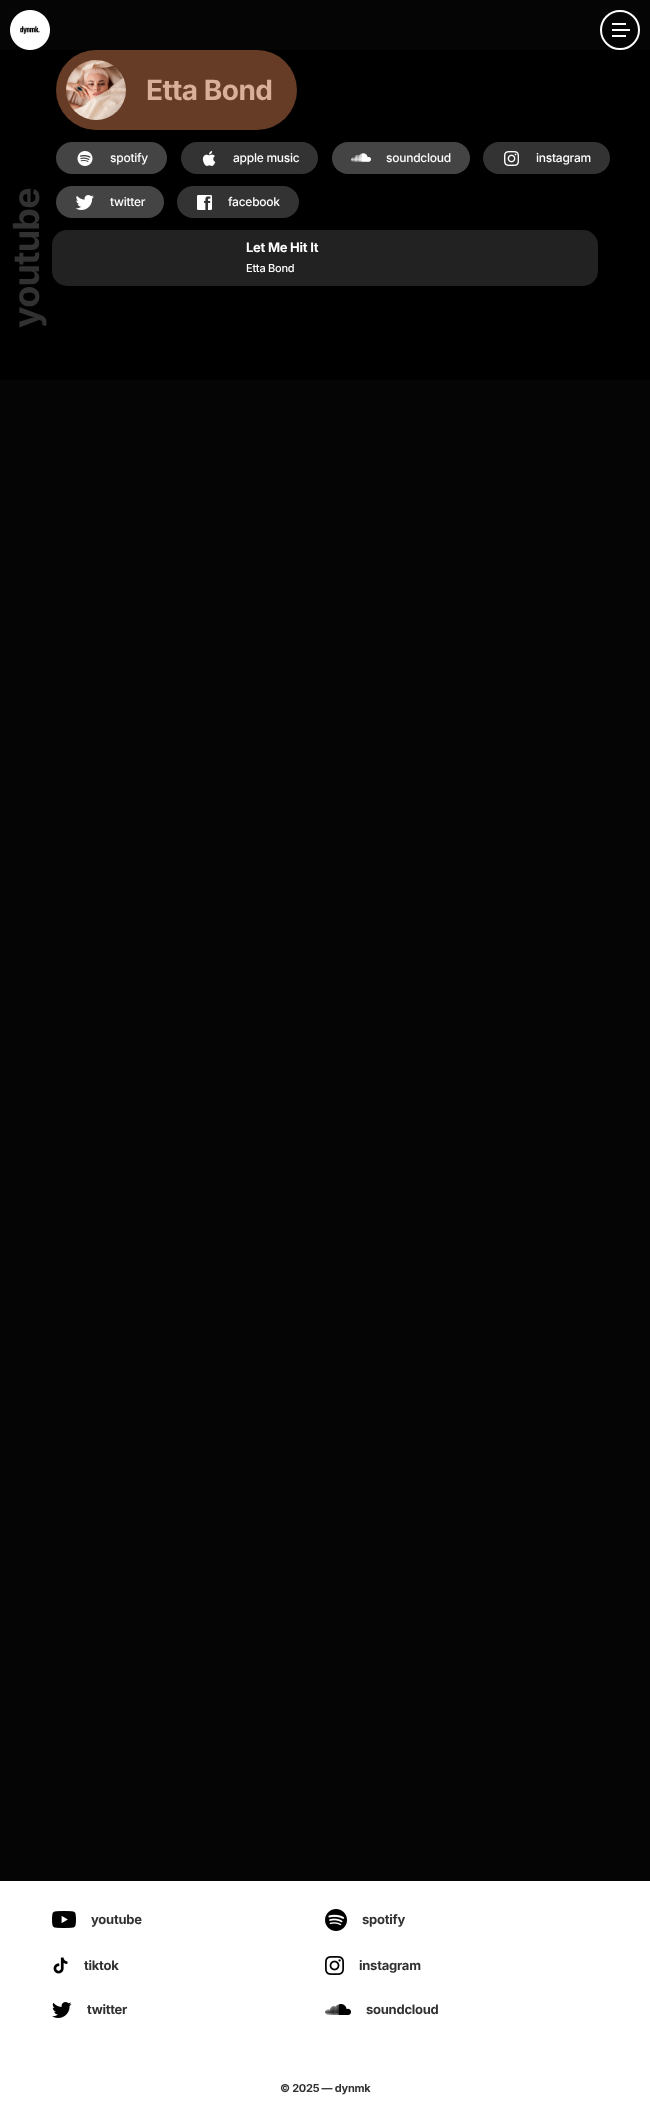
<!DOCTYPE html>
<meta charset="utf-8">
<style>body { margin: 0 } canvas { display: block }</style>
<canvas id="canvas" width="650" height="2118"></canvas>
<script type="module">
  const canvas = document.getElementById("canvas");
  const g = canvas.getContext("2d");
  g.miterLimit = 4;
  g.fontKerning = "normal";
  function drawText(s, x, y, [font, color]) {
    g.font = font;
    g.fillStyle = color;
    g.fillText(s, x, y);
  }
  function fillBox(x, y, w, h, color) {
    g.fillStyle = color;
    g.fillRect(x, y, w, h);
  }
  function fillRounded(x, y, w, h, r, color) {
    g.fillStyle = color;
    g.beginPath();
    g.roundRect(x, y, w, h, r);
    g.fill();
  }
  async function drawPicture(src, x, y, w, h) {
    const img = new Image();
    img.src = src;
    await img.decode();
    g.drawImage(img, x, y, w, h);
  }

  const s1 = ["bold 28px Inter", "#D9AF99"];
  const s2 = ["500 12px Inter", "#FFFFFF"];
  const s3 = ["bold 13px Inter", "#FFFFFF"];
  const s4 = ["500 11px Inter", "#FFFFFF"];
  const s5 = ["bold 13px Inter", "#313131"];
  const s6 = ["bold 11px Inter", "#313131"];

  fillBox(0, 0, 650, 2118, "#050505");
  await drawPicture("pic1.png", 10, 10, 40, 40);
  g.beginPath();
  g.arc(620, 30, 19, 0, Math.PI * 2);
  g.strokeStyle = "#FFFFFF";
  g.lineWidth = 2;
  g.stroke();
  fillBox(612, 23, 14, 2, "#FFFFFF");
  fillBox(612, 29, 18, 2, "#FFFFFF");
  fillBox(612, 35, 14, 2, "#FFFFFF");
  fillBox(0, 50, 650, 330, "#000000");
  fillRounded(56, 50, 241, 80, 40, "#663C26");
  await drawPicture("pic2.png", 66, 60, 60, 60);
  g.letterSpacing = "-0.5px";
  drawText("Etta Bond", 146, 100, s1);
  fillRounded(56, 142, 111, 32, 16, "#444444");
  await drawPicture("pic3.png", 77, 151, 16, 15);
  g.letterSpacing = "-0.25px";
  drawText("spotify", 110, 162, s2);
  fillRounded(181, 142, 137, 32, 16, "#333333");
  await drawPicture("pic4.png", 202, 151, 14, 15);
  drawText("apple music", 233, 162, s2);
  fillRounded(332, 142, 138, 32, 16, "#444444");
  await drawPicture("pic5.png", 351, 153, 20, 9);
  drawText("soundcloud", 386, 162, s2);
  fillRounded(483, 142, 127, 32, 16, "#333333");
  await drawPicture("pic6.png", 504, 151, 15, 15);
  drawText("instagram", 536, 162, s2);
  fillRounded(56, 186, 108, 32, 16, "#444444");
  await drawPicture("pic7.png", 75, 195, 19, 15);
  drawText("twitter", 110, 206, s2);
  fillRounded(177, 186, 122, 32, 16, "#333333");
  await drawPicture("pic8.png", 197, 195, 16, 15);
  drawText("facebook", 228, 206, s2);
  g.letterSpacing = "-0.75px";
  g.font = "bold 36px Inter";
  g.fillStyle = "#313131";
  g.save();
  g.translate(39, 328);
  g.rotate(-90 * Math.PI / 180);
  g.fillText("youtube", 0, 0);
  g.restore();
  fillRounded(52, 230, 546, 56, 15, "#222222");
  g.letterSpacing = "-0.25px";
  drawText("Let Me Hit It", 246, 252, s3);
  drawText("Etta Bond", 246, 272, s4);
  fillBox(0, 1881, 650, 237, "#FFFFFF");
  await drawPicture("pic9.png", 52, 1911, 24, 17);
  drawText("youtube", 91, 1924, s5);
  await drawPicture("pic10.png", 325, 1909, 22, 22);
  drawText("spotify", 362, 1924, s5);
  await drawPicture("pic11.png", 53, 1957, 15, 17);
  drawText("tiktok", 84, 1970, s5);
  await drawPicture("pic12.png", 325, 1956, 19, 19);
  drawText("instagram", 359, 1970, s5);
  await drawPicture("pic13.png", 52, 2002, 20, 16);
  drawText("twitter", 87, 2014, s5);
  await drawPicture("pic14.png", 325, 2004, 26, 11);
  drawText("soundcloud", 366, 2014, s5);
  drawText("© 2025 — dynmk", 280, 2092, s6);
</script>
